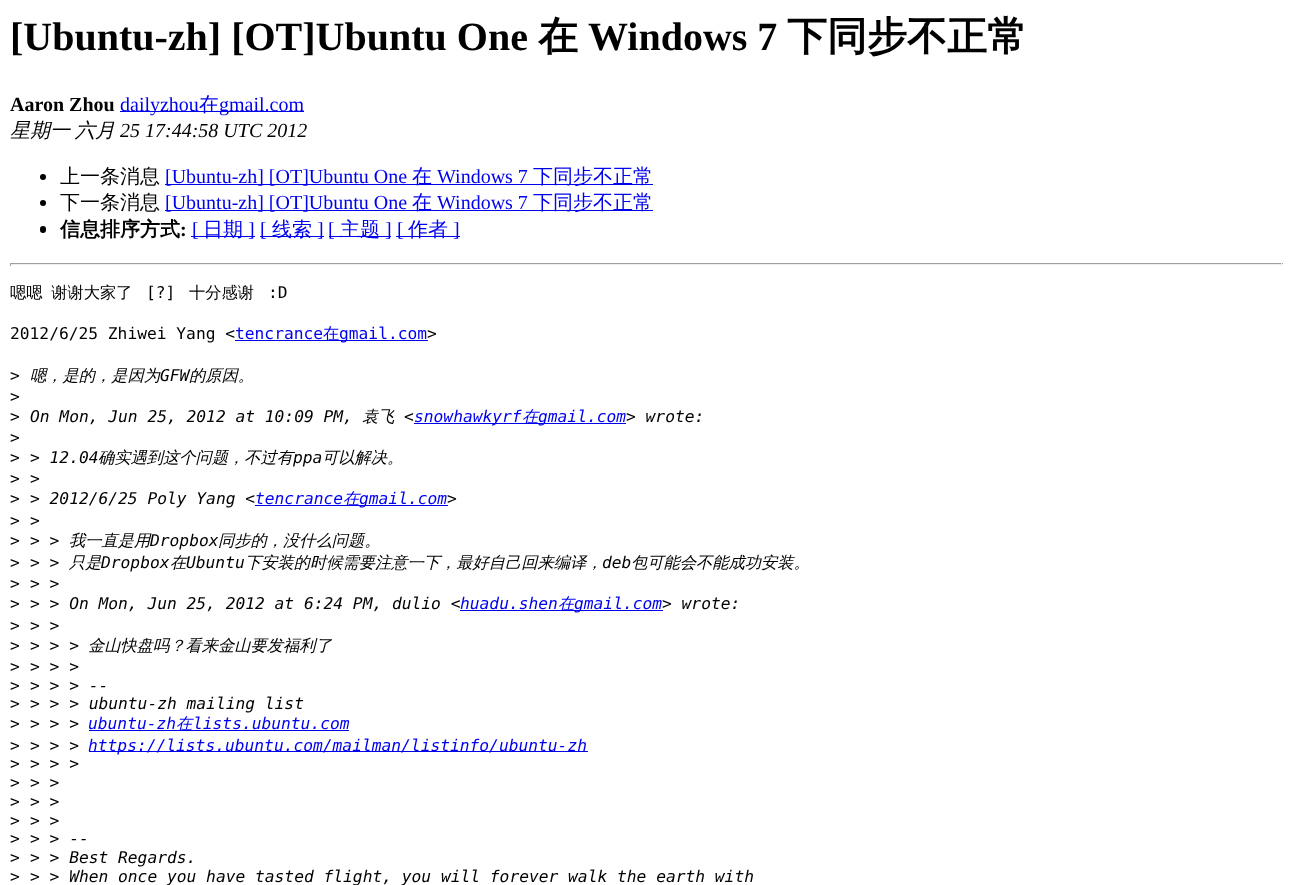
<!DOCTYPE html>
<meta charset="utf-8">
<style>body { margin: 0 } canvas { display: block }</style>
<canvas id="canvas" width="1292" height="885"></canvas>
<script type="module">
  const canvas = document.getElementById("canvas");
  const g = canvas.getContext("2d");
  g.miterLimit = 4;
  g.fontKerning = "normal";
  function drawText(s, x, y, [font, color]) {
    g.font = font;
    g.fillStyle = color;
    g.fillText(s, x, y);
  }
  function fillBox(x, y, w, h, color) {
    g.fillStyle = color;
    g.fillRect(x, y, w, h);
  }
  function fillRounded(x, y, w, h, r, color) {
    g.fillStyle = color;
    g.beginPath();
    g.roundRect(x, y, w, h, r);
    g.fill();
  }

  const s1 = ["bold 40px Liberation Serif", "#000000"];
  const s2 = ["bold 40px WenQuanYi Zen Hei", "#000000"];
  const s3 = ["bold 20px Liberation Serif", "#000000"];
  const s4 = ["20px Liberation Serif", "#0000EE"];
  const s5 = ["500 20px WenQuanYi Zen Hei", "#0000EE"];
  const s6 = ["italic 500 20px WenQuanYi Zen Hei", "#000000"];
  const s7 = ["italic 20px Liberation Serif", "#000000"];
  const s8 = ["500 20px WenQuanYi Zen Hei", "#000000"];
  const s9 = ["bold 20px WenQuanYi Zen Hei", "#000000"];
  const s10 = ["500 16.25px WenQuanYi Zen Hei", "#000000"];
  const s11 = ["16.25px DejaVu Sans Mono", "#000000"];
  const s12 = ["16.25px DejaVu Sans Mono", "#0000EE"];
  const s13 = ["500 16.25px WenQuanYi Zen Hei", "#0000EE"];
  const s14 = ["italic 500 16.25px WenQuanYi Zen Hei", "#000000"];
  const s15 = ["italic 16.25px DejaVu Sans Mono", "#000000"];
  const s16 = ["italic 16.25px DejaVu Sans Mono", "#0000EE"];
  const s17 = ["italic 500 16.25px WenQuanYi Zen Hei", "#0000EE"];

  fillBox(0, 0, 1292, 885, "#FFFFFF");
  drawText("[Ubuntu-zh] [OT]Ubuntu One", 10, 50, s1);
  drawText("在", 538, 50, s2);
  drawText("Windows 7", 588, 50, s1);
  drawText("下同步不正常", 787, 50, s2);
  drawText("Aaron Zhou", 10, 111, s3);
  fillBox(120, 111, 184, 1, "#0000EE");
  drawText("dailyzhou", 120, 111, s4);
  drawText("在", 199, 111, s5);
  drawText("gmail.com", 219, 111, s4);
  drawText("星期一", 10, 137, s6);
  drawText("六月", 75, 137, s6);
  drawText("25 17:44:58 UTC 2012", 120, 137, s7);
  g.beginPath();
  g.arc(43, 177, 3, 0, Math.PI * 2);
  g.fill();
  drawText("上一条消息", 60, 183, s8);
  fillBox(165, 184, 488, 1, "#0000EE");
  drawText("[Ubuntu-zh] [OT]Ubuntu One", 165, 183, s4);
  drawText("在", 412, 183, s5);
  drawText("Windows 7", 437, 183, s4);
  drawText("下同步不正常", 533, 183, s5);
  g.fillStyle = "#000000";
  g.beginPath();
  g.arc(43, 203, 3, 0, Math.PI * 2);
  g.fill();
  drawText("下一条消息", 60, 209, s8);
  fillBox(165, 210, 488, 1, "#0000EE");
  drawText("[Ubuntu-zh] [OT]Ubuntu One", 165, 209, s4);
  drawText("在", 412, 209, s5);
  drawText("Windows 7", 437, 209, s4);
  drawText("下同步不正常", 533, 209, s5);
  fillRounded(40, 226, 6, 7, 3, "#000000");
  drawText("信息排序方式", 60, 236, s9);
  drawText(":", 180, 236, s3);
  fillBox(191, 236, 64, 1, "#0000EE");
  drawText("[", 192, 236, s4);
  drawText("日期", 203, 236, s5);
  drawText("]", 248, 236, s4);
  fillBox(260, 236, 64, 1, "#0000EE");
  drawText("[", 260, 236, s4);
  drawText("线索", 272, 236, s5);
  drawText("]", 317, 236, s4);
  fillBox(329, 236, 62, 1, "#0000EE");
  drawText("[", 328, 236, s4);
  drawText("主题", 340, 236, s5);
  drawText("]", 385, 236, s4);
  fillBox(396, 236, 64, 1, "#0000EE");
  drawText("[", 397, 236, s4);
  drawText("作者", 408, 236, s5);
  drawText("]", 453, 236, s4);
  fillBox(10, 263, 1273, 1, "#9F9F9F");
  fillBox(1281, 263, 1, 3, "#EEEEEE");
  fillBox(10, 264, 1273, 1, "#EEEEEE");
  fillBox(10, 263, 1, 3, "#9F9F9F");
  g.wordSpacing = "4px";
  drawText("嗯嗯 谢谢大家了", 10, 298, s10);
  g.wordSpacing = "0px";
  drawText("[?]", 146, 298, s11);
  drawText("十分感谢", 189, 298, s10);
  drawText(":D", 268, 298, s11);
  drawText("2012/6/25 Zhiwei Yang <", 10, 339, s11);
  drawText("tencrance", 235, 339, s12);
  fillBox(235, 340, 193, 1, "#0000EE");
  drawText("在", 323, 339, s13);
  drawText("gmail.com", 339, 339, s12);
  drawText(">", 427, 339, s11);
  drawText(">", 10, 381, s11);
  drawText("嗯，是的，是因为", 30, 381, s14);
  drawText("GFW", 160, 381, s15);
  drawText("的原因。", 189, 381, s14);
  drawText(">", 10, 402, s11);
  drawText(">", 10, 422, s11);
  drawText("On Mon, Jun 25, 2012 at 10:09 PM,", 30, 422, s15);
  drawText("袁飞", 362, 422, s14);
  drawText("<", 404, 422, s15);
  fillBox(414, 423, 212, 1, "#0000EE");
  drawText("snowhawkyrf", 414, 422, s16);
  drawText("在", 522, 422, s17);
  drawText("gmail.com", 538, 422, s16);
  drawText("> wrote:", 626, 422, s15);
  drawText(">", 10, 443, s11);
  drawText(">", 10, 463, s11);
  drawText("> 12.04", 30, 463, s15);
  drawText("确实遇到这个问题，不过有", 98, 463, s14);
  drawText("ppa", 293, 463, s15);
  drawText("可以解决。", 322, 463, s14);
  drawText(">", 10, 484, s11);
  drawText(">", 30, 484, s15);
  drawText(">", 10, 504, s11);
  drawText("> 2012/6/25 Poly Yang <", 30, 504, s15);
  drawText("tencrance", 255, 504, s16);
  fillBox(255, 505, 193, 1, "#0000EE");
  drawText("在", 343, 504, s17);
  drawText("gmail.com", 359, 504, s16);
  drawText(">", 447, 504, s15);
  drawText(">", 10, 526, s11);
  drawText(">", 30, 526, s15);
  drawText(">", 10, 546, s11);
  drawText("> >", 30, 546, s15);
  drawText("我一直是用", 69, 546, s14);
  drawText("Dropbox", 150, 546, s15);
  drawText("同步的，没什么问题。", 218, 546, s14);
  drawText(">", 10, 568, s11);
  drawText("> >", 30, 568, s15);
  drawText("只是", 69, 568, s14);
  drawText("Dropbox", 101, 568, s15);
  drawText("在", 170, 568, s14);
  drawText("Ubuntu", 186, 568, s15);
  drawText("下安装的时候需要注意一下，最好自己回来编译，", 245, 568, s14);
  drawText("deb", 602, 568, s15);
  drawText("包可能会不能成功安装。", 631, 568, s14);
  drawText(">", 10, 589, s11);
  drawText("> >", 30, 589, s15);
  drawText(">", 10, 609, s11);
  drawText("> > On Mon, Jun 25, 2012 at 6:24 PM, dulio <", 30, 609, s15);
  drawText("huadu.shen", 460, 609, s16);
  fillBox(460, 610, 203, 1, "#0000EE");
  drawText("在", 558, 609, s17);
  drawText("gmail.com", 574, 609, s16);
  drawText("> wrote:", 662, 609, s15);
  drawText(">", 10, 631, s11);
  drawText("> >", 30, 631, s15);
  drawText(">", 10, 651, s11);
  drawText("> > >", 30, 651, s15);
  drawText("金山快盘吗？看来金山要发福利了", 88, 651, s14);
  drawText(">", 10, 672, s11);
  drawText("> > >", 30, 672, s15);
  drawText(">", 10, 691, s11);
  drawText("> > > --", 30, 691, s15);
  drawText(">", 10, 709, s11);
  drawText("> > > ubuntu-zh mailing list", 30, 709, s15);
  drawText(">", 10, 729, s11);
  drawText("> > >", 30, 729, s15);
  drawText("ubuntu-zh", 88, 729, s16);
  fillBox(89, 730, 260, 1, "#0000EE");
  drawText("在", 176, 729, s17);
  drawText("lists.ubuntu.com", 193, 729, s16);
  drawText(">", 10, 751, s11);
  drawText("> > >", 30, 751, s15);
  fillBox(89, 751, 499, 1, "#0000EE");
  drawText("https://lists.ubuntu.com/mailman/listinfo/ubuntu-zh", 88, 751, s16);
  drawText(">", 10, 769, s11);
  drawText("> > >", 30, 769, s15);
  drawText(">", 10, 788, s11);
  drawText("> >", 30, 788, s15);
  drawText(">", 10, 807, s11);
  drawText("> >", 30, 807, s15);
  drawText(">", 10, 826, s11);
  drawText("> >", 30, 826, s15);
  drawText(">", 10, 844, s11);
  drawText("> > --", 30, 844, s15);
  drawText(">", 10, 863, s11);
  drawText("> > Best Regards.", 30, 863, s15);
  drawText(">", 10, 882, s11);
  drawText("> > When once you have tasted flight, you will forever walk the earth with", 30, 882, s15);
</script>
